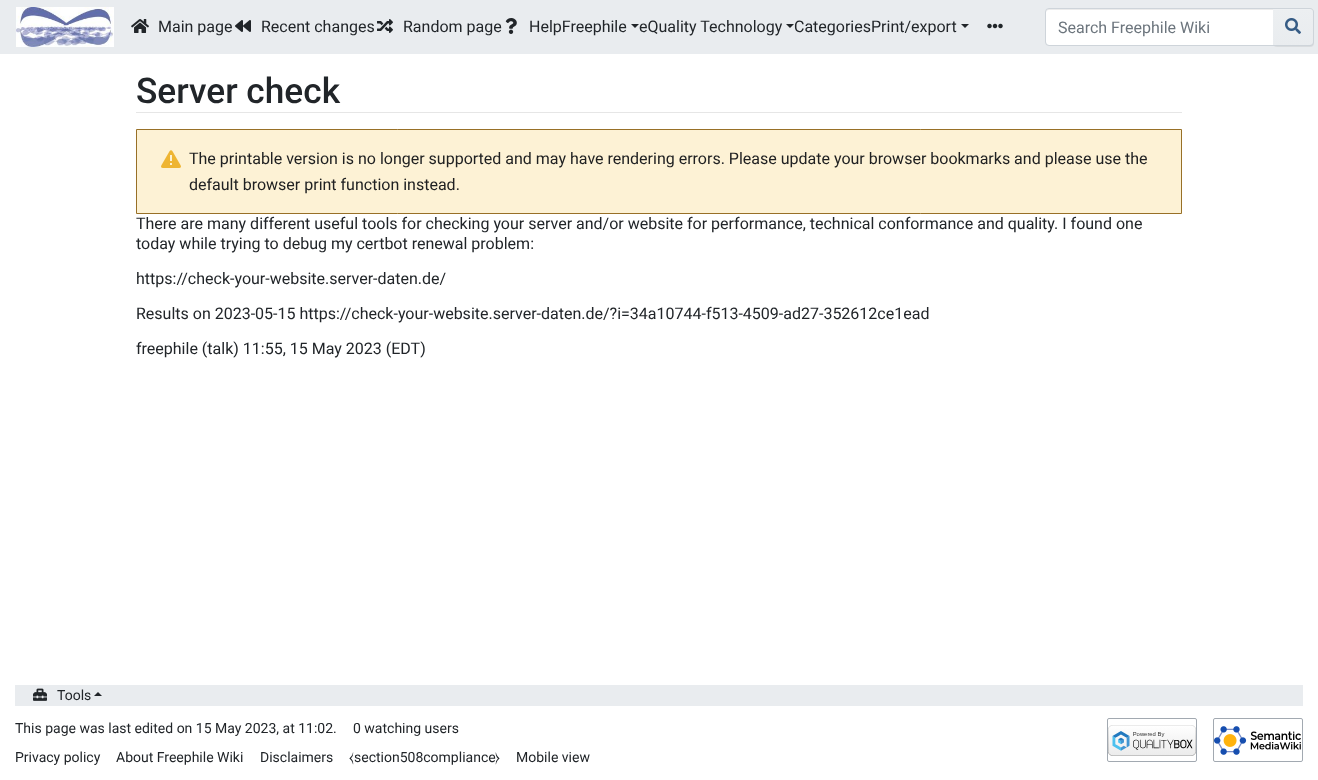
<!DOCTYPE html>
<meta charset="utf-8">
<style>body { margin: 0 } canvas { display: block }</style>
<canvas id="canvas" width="1318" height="780"></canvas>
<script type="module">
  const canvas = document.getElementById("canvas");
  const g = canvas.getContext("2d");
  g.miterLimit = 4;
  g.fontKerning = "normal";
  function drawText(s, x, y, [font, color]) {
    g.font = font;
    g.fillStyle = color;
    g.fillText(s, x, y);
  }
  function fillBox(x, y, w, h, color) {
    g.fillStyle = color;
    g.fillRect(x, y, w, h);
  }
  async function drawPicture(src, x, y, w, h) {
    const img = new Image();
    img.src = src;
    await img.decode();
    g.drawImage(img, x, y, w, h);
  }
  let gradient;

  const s1 = ["16px Roboto", "#212529"];
  const s2 = ["16px Roboto", "#6C757D"];
  const s3 = ["500 35.25px Roboto", "#212529"];
  const s4 = ["16px Roboto", "#202122"];
  const s5 = ["14px Roboto", "#212529"];
  const s6 = ["14px FreeSerif", "#212529"];

  fillBox(0, 0, 1318, 780, "#FFFFFF");
  fillBox(0, 0, 1318, 54, "#E9ECEF");
  await drawPicture("pic1.png", 16, 7, 98, 40);
  await drawPicture("pic2.png", 131, 19, 18, 14);
  drawText("Main page", 158, 32, s1);
  await drawPicture("pic3.png", 235, 20, 16, 12);
  drawText("Recent changes", 261, 32, s1);
  await drawPicture("pic4.png", 377, 19, 16, 14);
  drawText("Random page", 403, 32, s1);
  await drawPicture("pic5.png", 505, 18, 12, 16);
  drawText("HelpFreephile", 529, 32, s1);
  g.beginPath();
  g.moveTo(631, 24);
  g.lineTo(639, 24);
  g.lineTo(635, 28);
  g.closePath();
  g.fill();
  drawText("eQuality Technology", 639, 32, s1);
  g.beginPath();
  g.moveTo(786, 24);
  g.lineTo(794, 24);
  g.lineTo(790, 28);
  g.closePath();
  g.fill();
  drawText("CategoriesPrint/export", 794, 32, s1);
  g.beginPath();
  g.moveTo(961, 24);
  g.lineTo(969, 24);
  g.lineTo(965, 28);
  g.closePath();
  g.fill();
  await drawPicture("pic6.png", 987, 23, 16, 6);
  g.fillStyle = "#FFFFFF";
  g.beginPath();
  g.roundRect(1046, 9, 227, 36, [3, 0, 0, 3]);
  g.fill();
  g.fillStyle = "#ECECEC";
  g.beginPath();
  g.moveTo(1049, 10);
  g.lineTo(1273, 10);
  g.lineTo(1273, 9);
  g.lineTo(1049, 9);
  g.bezierCurveTo(1047, 9, 1046, 11, 1046, 13);
  g.bezierCurveTo(1046, 11, 1047, 10, 1049, 10);
  g.closePath();
  g.fill();
  g.beginPath();
  g.roundRect(1045.5, 8.5, 228, 37, [3.5, 0, 0, 3.5]);
  g.strokeStyle = "#CED4DA";
  g.stroke();
  drawText("Search Freephile Wiki", 1058, 33, s2);
  g.fillStyle = "rgba(0, 0, 0, 0.07)";
  g.filter = "blur(0.5px)";
  g.beginPath();
  g.roundRect(1273, 9, 41, 38, 4);
  g.fill();
  g.filter = "none";
  gradient = g.createLinearGradient(1293, 9, 1293, 45);
  gradient.addColorStop(0, "#ECEFF1");
  gradient.addColorStop(1, "#E9ECEF");
  g.fillStyle = gradient;
  g.beginPath();
  g.roundRect(1273, 9, 40, 36, [0, 3, 3, 0]);
  g.fill();
  g.fillStyle = "#EFF1F3";
  g.beginPath();
  g.moveTo(1273, 10);
  g.lineTo(1310, 10);
  g.bezierCurveTo(1312, 10, 1313, 11, 1313, 13);
  g.lineTo(1313, 12);
  g.bezierCurveTo(1313, 10, 1312, 9, 1310, 9);
  g.lineTo(1273, 9);
  g.closePath();
  g.fill();
  g.fillStyle = "#CED4DA";
  g.beginPath();
  g.moveTo(1273, 8);
  g.lineTo(1310, 8);
  g.bezierCurveTo(1312, 8, 1314, 10, 1314, 12);
  g.lineTo(1314, 42);
  g.bezierCurveTo(1314, 44, 1312, 46, 1310, 46);
  g.lineTo(1273, 46);
  g.closePath();
  g.moveTo(1273, 9);
  g.lineTo(1310, 9);
  g.bezierCurveTo(1312, 9, 1313, 10, 1313, 12);
  g.lineTo(1313, 42);
  g.bezierCurveTo(1313, 44, 1312, 45, 1310, 45);
  g.lineTo(1273, 45);
  g.closePath();
  g.fill("evenodd");
  await drawPicture("pic7.png", 1285, 18, 16, 16);
  fillBox(136, 112, 1046, 1, "#E6E6E6");
  drawText("Server check", 136, 103, s3);
  g.fillStyle = "#FDF2D5";
  g.beginPath();
  g.rect(136.5, 129.5, 1045, 84);
  g.fill();
  g.strokeStyle = "#987027";
  g.stroke();
  await drawPicture("pic8.png", 161, 150, 20, 18);
  drawText("The printable version is no longer supported and may have rendering errors. Please update your browser bookmarks and please use the", 189, 164, s4);
  drawText("default browser print function instead.", 189, 190, s4);
  drawText("There are many different useful tools for checking your server and/or website for performance, technical conformance and quality. I found one", 136, 229, s1);
  drawText("today while trying to debug my certbot renewal problem:", 136, 249, s1);
  drawText("https://check-your-website.server-daten.de/", 136, 284, s1);
  drawText("Results on 2023-05-15 https://check-your-website.server-daten.de/?i=34a10744-f513-4509-ad27-352612ce1ead", 136, 319, s1);
  drawText("freephile (talk) 11:55, 15 May 2023 (EDT)", 136, 354, s1);
  fillBox(15, 685, 1288, 21, "#E9ECEF");
  await drawPicture("pic9.png", 33, 688, 14, 13);
  drawText("Tools", 57, 700, s5);
  g.beginPath();
  g.moveTo(102, 696);
  g.lineTo(94, 696);
  g.lineTo(98, 692);
  g.closePath();
  g.fill();
  drawText("This page was last edited on 15 May 2023, at 11:02.", 15, 733, s5);
  drawText("0 watching users", 353, 733, s5);
  drawText("Privacy policy", 15, 762, s5);
  drawText("About Freephile Wiki", 116, 762, s5);
  drawText("Disclaimers", 260, 762, s5);
  drawText("⧼", 349, 762, s6);
  drawText("section508compliance", 354, 762, s5);
  drawText("⧽", 495, 762, s6);
  drawText("Mobile view", 516, 762, s5);
  g.beginPath();
  g.roundRect(1107.5, 718.5, 89, 43, 1.5);
  g.strokeStyle = "#A2A9B1";
  g.stroke();
  await drawPicture("pic10.png", 1108, 725, 88, 31);
  g.beginPath();
  g.roundRect(1213.5, 718.5, 89, 43, 1.5);
  g.stroke();
  await drawPicture("pic11.png", 1214, 726, 87, 29);
</script>
